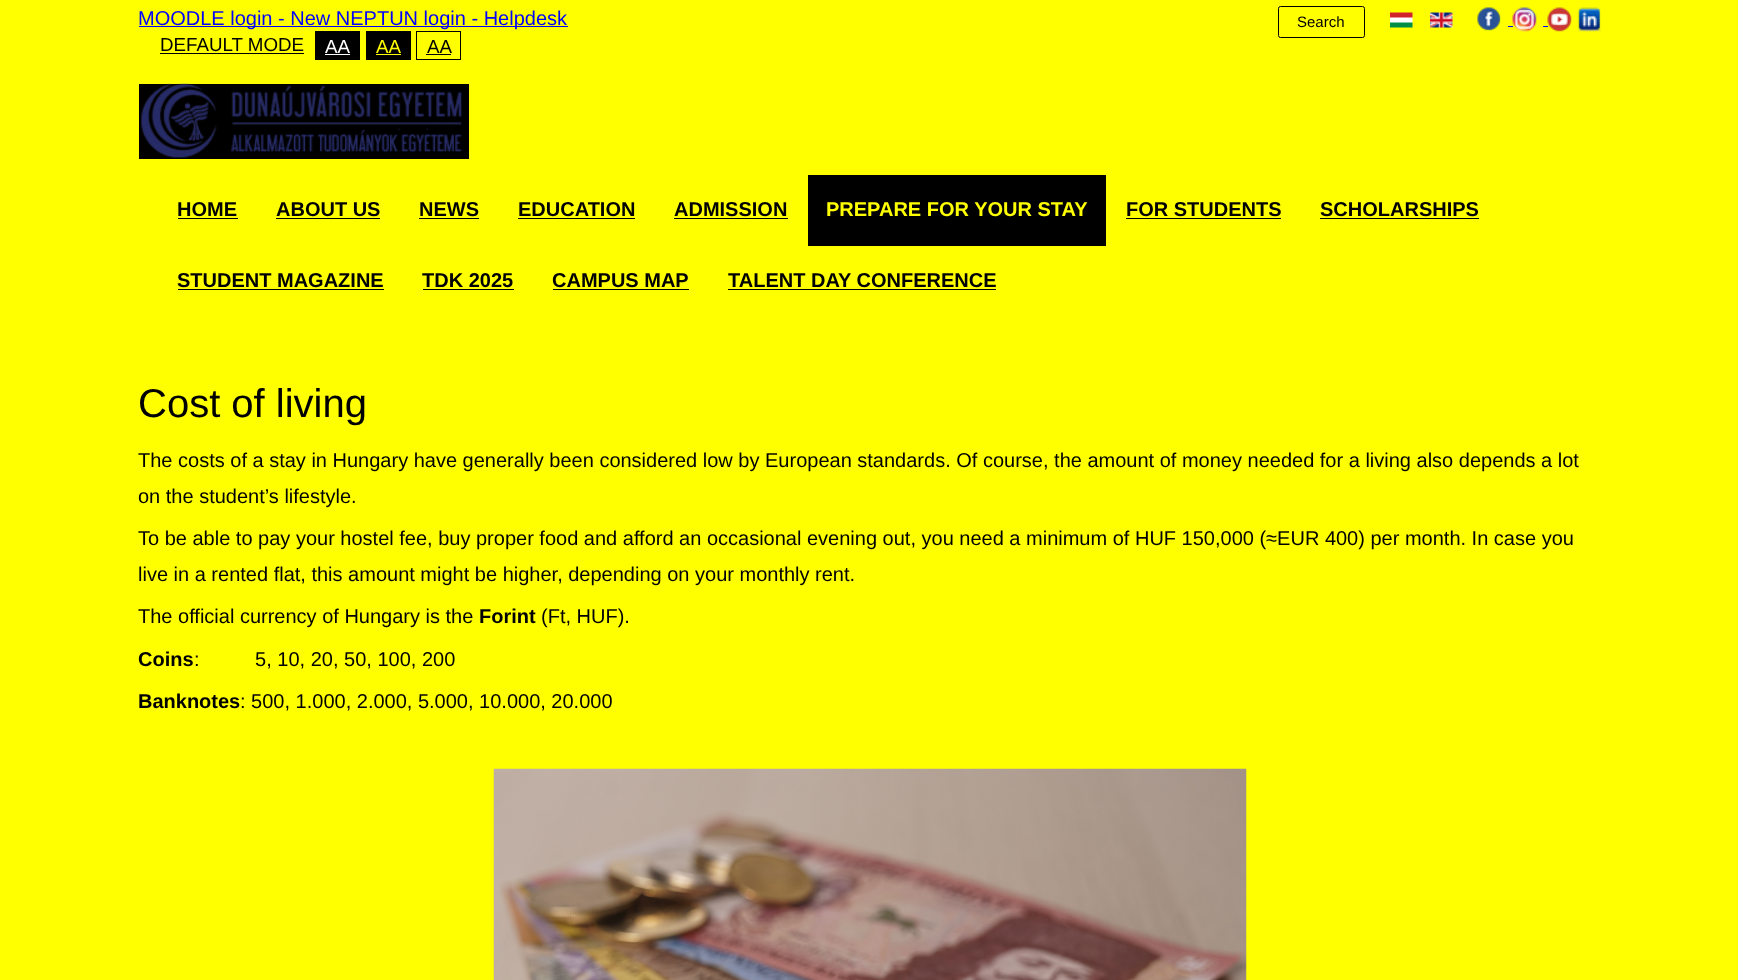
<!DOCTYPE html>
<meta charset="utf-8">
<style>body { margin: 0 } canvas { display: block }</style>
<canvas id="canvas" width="1738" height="980"></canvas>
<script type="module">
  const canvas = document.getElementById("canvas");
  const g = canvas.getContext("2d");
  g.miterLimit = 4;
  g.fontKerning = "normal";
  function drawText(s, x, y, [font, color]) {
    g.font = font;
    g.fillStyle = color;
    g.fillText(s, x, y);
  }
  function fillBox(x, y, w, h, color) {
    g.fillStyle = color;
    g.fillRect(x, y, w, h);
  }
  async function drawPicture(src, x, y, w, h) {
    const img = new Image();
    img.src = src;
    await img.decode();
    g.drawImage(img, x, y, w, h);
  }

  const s1 = ["20px Liberation Sans", "#0000FF"];
  const s2 = ["18.75px Liberation Sans", "#000000"];
  const s3 = ["18.75px Liberation Sans", "#FFFFFF"];
  const s4 = ["18.75px Liberation Sans", "#FFFF00"];
  const s5 = ["15px Liberation Sans", "#000000"];
  const s6 = ["bold 20px Liberation Sans", "#000000"];
  const s7 = ["bold 20px Liberation Sans", "#FFFF00"];
  const s8 = ["40px Liberation Sans", "#000000"];
  const s9 = ["20px Liberation Sans", "#000000"];

  fillBox(0, 0, 1738, 980, "#FFFF00");
  fillBox(139, 26, 429, 1, "#0000FF");
  drawText("MOODLE login - New NEPTUN login - Helpdesk", 138, 25, s1);
  drawText("DEFAULT MODE", 160, 51, s2);
  fillBox(160, 53, 144, 1, "#000000");
  fillBox(315, 31, 45, 29, "#000000");
  drawText("AA", 325, 53, s3);
  fillBox(325, 54, 25, 1, "#FFFFFF");
  fillBox(366, 31, 45, 29, "#000000");
  drawText("AA", 376, 53, s4);
  fillBox(376, 54, 25, 1, "#FFFF00");
  g.strokeStyle = "#000000";
  g.strokeRect(416.5, 31.5, 44, 28);
  drawText("AA", 427, 53, s2);
  fillBox(426, 54, 25, 1, "#000000");
  g.beginPath();
  g.roundRect(1278.5, 6.5, 86, 31, 2);
  g.stroke();
  drawText("Search", 1297, 27, s5);
  await drawPicture("pic1.png", 1390, 12, 23, 16);
  await drawPicture("pic2.png", 1430, 12, 23, 16);
  await drawPicture("pic3.png", 1477, 7, 24, 24);
  fillBox(1508, 26, 5, 1, "#0000FF");
  await drawPicture("pic4.png", 1512, 7, 25, 25);
  fillBox(1543, 26, 5, 1, "#0000FF");
  await drawPicture("pic5.png", 1547, 7, 25, 25);
  await drawPicture("pic6.png", 1577, 7, 25, 25);
  fillBox(139, 84, 330, 75, "#000000");
  await drawPicture("pic7.png", 141, 83, 321, 75);
  drawText("HOME", 177, 216, s6);
  fillBox(178, 218, 60, 1, "#000000");
  drawText("ABOUT US", 276, 216, s6);
  fillBox(276, 218, 104, 1, "#000000");
  drawText("NEWS", 419, 216, s6);
  fillBox(419, 218, 60, 1, "#000000");
  drawText("EDUCATION", 518, 216, s6);
  fillBox(518, 218, 117, 1, "#000000");
  drawText("ADMISSION", 674, 216, s6);
  fillBox(674, 218, 114, 1, "#000000");
  fillBox(808, 175, 298, 71, "#000000");
  drawText("PREPARE FOR YOUR STAY", 826, 216, s7);
  drawText("FOR STUDENTS", 1126, 216, s6);
  fillBox(1126, 218, 155, 1, "#000000");
  drawText("SCHOLARSHIPS", 1320, 216, s6);
  fillBox(1320, 218, 159, 1, "#000000");
  drawText("STUDENT MAGAZINE", 177, 287, s6);
  fillBox(178, 289, 206, 1, "#000000");
  drawText("TDK 2025", 422, 287, s6);
  fillBox(423, 289, 91, 1, "#000000");
  drawText("CAMPUS MAP", 552, 287, s6);
  fillBox(553, 289, 136, 1, "#000000");
  drawText("TALENT DAY CONFERENCE", 728, 287, s6);
  fillBox(728, 289, 268, 1, "#000000");
  drawText("Cost of living", 138, 417, s8);
  drawText("The costs of a stay in Hungary have generally been considered low by European standards. Of course, the amount of money needed for a living also depends a lot", 138, 467, s9);
  drawText("on the student’s lifestyle.", 138, 503, s9);
  drawText("To be able to pay your hostel fee, buy proper food and afford an occasional evening out, you need a minimum of HUF 150,000 (≈EUR 400) per month. In case you", 138, 545, s9);
  drawText("live in a rented flat, this amount might be higher, depending on your monthly rent.", 138, 581, s9);
  drawText("The official currency of Hungary is the", 138, 623, s9);
  drawText("Forint", 479, 623, s6);
  drawText("(Ft, HUF).", 541, 623, s9);
  drawText("Coins", 138, 666, s6);
  drawText(":          5, 10, 20, 50, 100, 200", 194, 666, s9);
  drawText("Banknotes", 138, 708, s6);
  drawText(": 500, 1.000, 2.000, 5.000, 10.000, 20.000", 240, 708, s9);
  await drawPicture("pic8.png", 493, 768, 754, 212);
</script>
